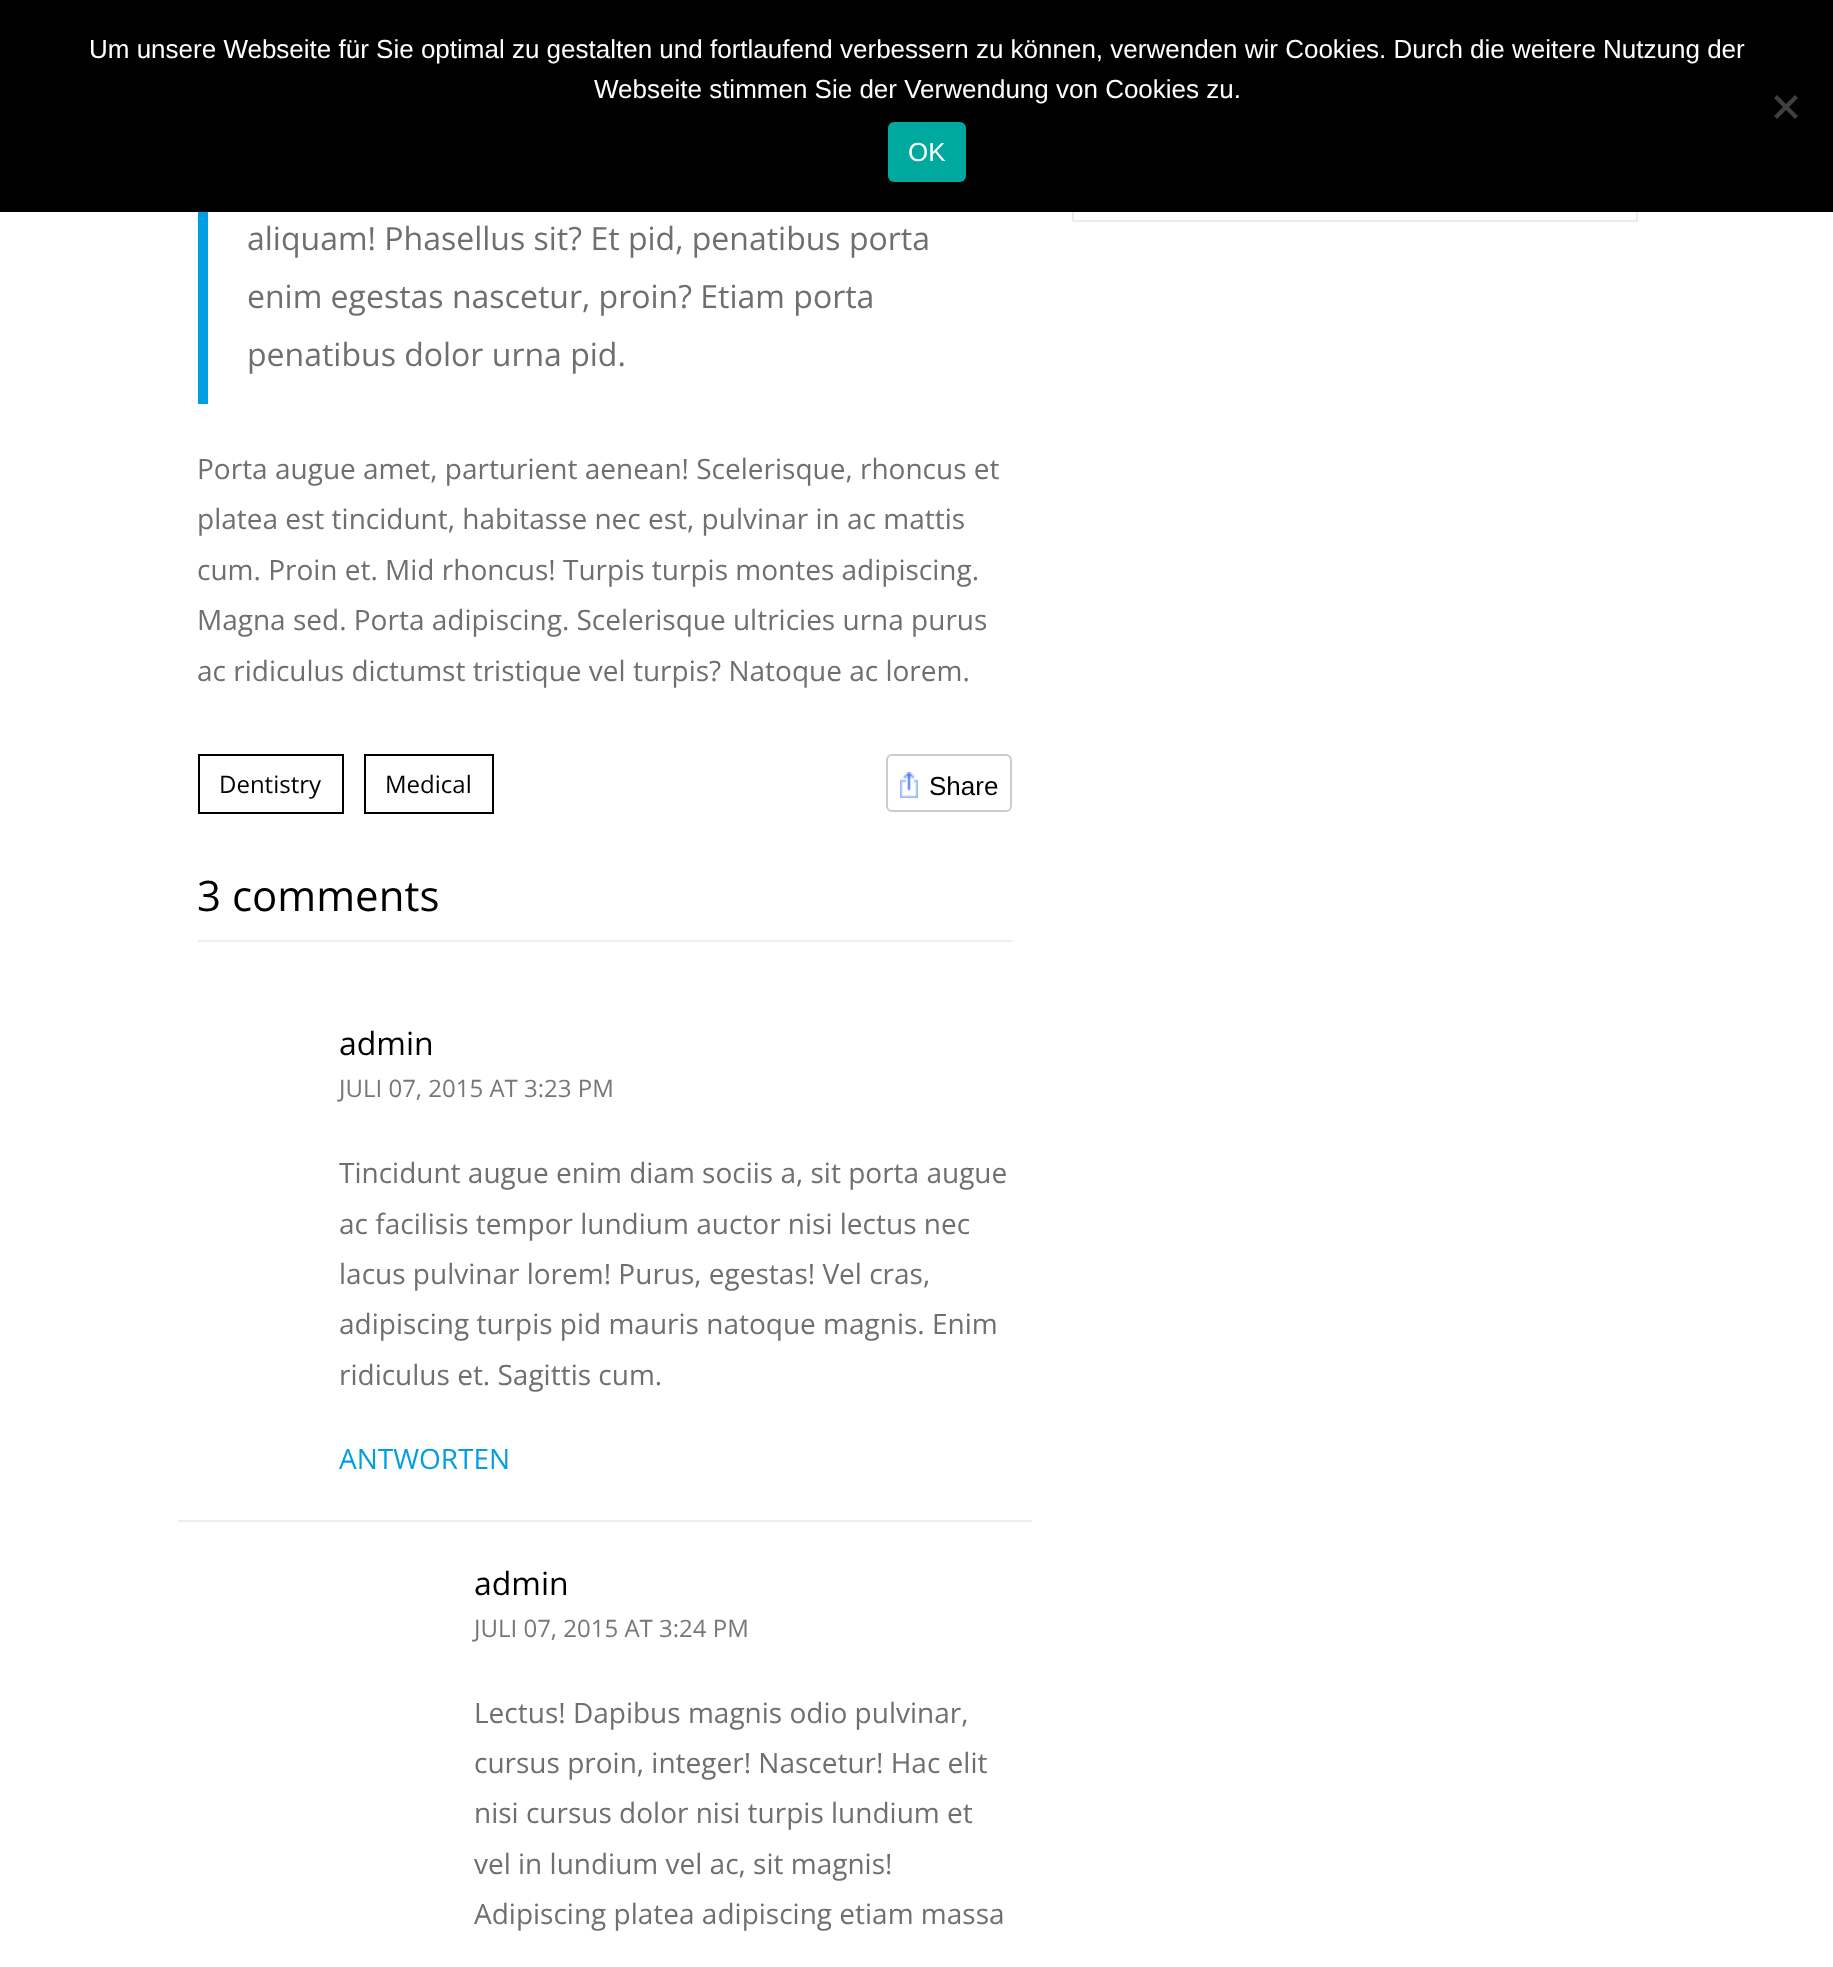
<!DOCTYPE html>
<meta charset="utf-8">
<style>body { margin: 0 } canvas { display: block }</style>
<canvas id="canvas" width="1833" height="1967"></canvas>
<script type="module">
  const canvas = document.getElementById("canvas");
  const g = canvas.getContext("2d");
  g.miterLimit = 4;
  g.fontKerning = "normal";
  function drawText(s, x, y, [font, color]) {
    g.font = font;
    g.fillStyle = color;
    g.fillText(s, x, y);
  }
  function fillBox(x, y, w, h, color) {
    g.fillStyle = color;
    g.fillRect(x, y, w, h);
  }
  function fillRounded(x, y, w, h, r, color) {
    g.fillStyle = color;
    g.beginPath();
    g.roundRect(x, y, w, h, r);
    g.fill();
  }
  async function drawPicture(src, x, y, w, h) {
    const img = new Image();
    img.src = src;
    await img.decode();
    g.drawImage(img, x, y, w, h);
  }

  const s1 = ["26px Liberation Sans", "#FFFFFF"];
  const s2 = ["32px Open Sans", "#6F6F6F"];
  const s3 = ["28px Open Sans", "#6F6F6F"];
  const s4 = ["24px Open Sans", "#000000"];
  const s5 = ["26px Liberation Sans", "#000000"];
  const s6 = ["42px Open Sans", "#000000"];
  const s7 = ["32px Open Sans", "#000000"];
  const s8 = ["24px Open Sans", "#777777"];
  const s9 = ["28px Open Sans", "#009FE3"];

  fillBox(0, 0, 1833, 1967, "#FFFFFF");
  g.strokeStyle = "#EBEBEB";
  g.lineWidth = 2;
  g.strokeRect(1073, -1, 564, 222);
  fillBox(0, 0, 1833, 212, "#000000");
  drawText("Um unsere Webseite für Sie optimal zu gestalten und fortlaufend verbessern zu können, verwenden wir Cookies. Durch die weitere Nutzung der", 89, 58, s1);
  drawText("Webseite stimmen Sie der Verwendung von Cookies zu.", 594, 98, s1);
  g.fillStyle = "#404040";
  g.beginPath();
  g.moveTo(1795, 95);
  g.lineTo(1798, 98);
  g.lineTo(1777, 119);
  g.lineTo(1774, 116);
  g.closePath();
  g.fill();
  g.beginPath();
  g.moveTo(1774, 98);
  g.lineTo(1777, 95);
  g.lineTo(1798, 116);
  g.lineTo(1795, 119);
  g.closePath();
  g.fill();
  fillRounded(888, 122, 78, 60, 6, "#00A99D");
  drawText("OK", 908, 161, s1);
  fillBox(198, 212, 10, 192, "#009FE3");
  drawText("aliquam! Phasellus sit? Et pid, penatibus porta", 247, 250, s2);
  drawText("enim egestas nascetur, proin? Etiam porta", 247, 308, s2);
  drawText("penatibus dolor urna pid.", 247, 366, s2);
  drawText("Porta augue amet, parturient aenean! Scelerisque, rhoncus et", 197, 479, s3);
  drawText("platea est tincidunt, habitasse nec est, pulvinar in ac mattis", 197, 529, s3);
  drawText("cum. Proin et. Mid rhoncus! Turpis turpis montes adipiscing.", 197, 580, s3);
  drawText("Magna sed. Porta adipiscing. Scelerisque ultricies urna purus", 197, 630, s3);
  drawText("ac ridiculus dictumst tristique vel turpis? Natoque ac lorem.", 197, 681, s3);
  g.strokeStyle = "#000000";
  g.strokeRect(199, 755, 144, 58);
  drawText("Dentistry", 219, 793, s4);
  g.strokeRect(365, 755, 128, 58);
  drawText("Medical", 385, 793, s4);
  g.beginPath();
  g.roundRect(887, 755, 124, 56, 5);
  g.strokeStyle = "#CCCCCC";
  g.stroke();
  await drawPicture("pic1.png", 900, 772, 18, 26);
  drawText("Share", 929, 795, s5);
  fillBox(198, 940, 814, 2, "#EEEEEE");
  drawText("3 comments", 197, 911, s6);
  fillBox(178, 1520, 854, 2, "#EEEEEE");
  drawText("admin", 339, 1055, s7);
  drawText("JULI 07, 2015 AT 3:23 PM", 339, 1097, s8);
  drawText("Tincidunt augue enim diam sociis a, sit porta augue", 339, 1183, s3);
  drawText("ac facilisis tempor lundium auctor nisi lectus nec", 339, 1234, s3);
  drawText("lacus pulvinar lorem! Purus, egestas! Vel cras,", 339, 1284, s3);
  drawText("adipiscing turpis pid mauris natoque magnis. Enim", 339, 1334, s3);
  drawText("ridiculus et. Sagittis cum.", 339, 1385, s3);
  drawText("ANTWORTEN", 339, 1469, s9);
  drawText("admin", 474, 1595, s7);
  drawText("JULI 07, 2015 AT 3:24 PM", 474, 1637, s8);
  drawText("Lectus! Dapibus magnis odio pulvinar,", 474, 1723, s3);
  drawText("cursus proin, integer! Nascetur! Hac elit", 474, 1773, s3);
  drawText("nisi cursus dolor nisi turpis lundium et", 474, 1823, s3);
  drawText("vel in lundium vel ac, sit magnis!", 474, 1874, s3);
  drawText("Adipiscing platea adipiscing etiam massa", 474, 1924, s3);
</script>
